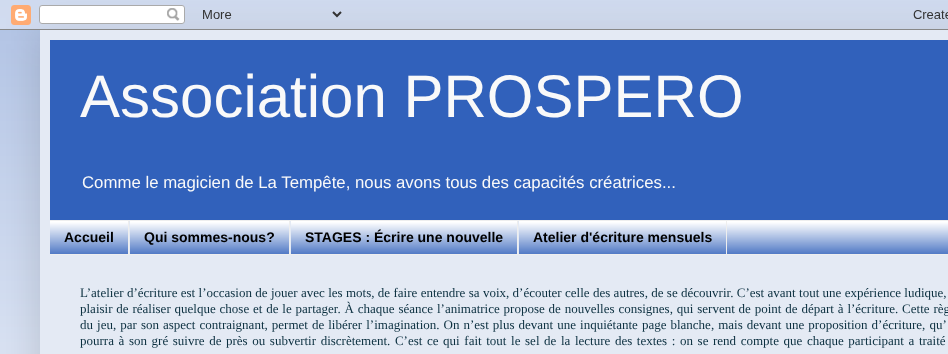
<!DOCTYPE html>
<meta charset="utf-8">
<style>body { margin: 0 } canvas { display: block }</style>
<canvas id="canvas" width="948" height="354"></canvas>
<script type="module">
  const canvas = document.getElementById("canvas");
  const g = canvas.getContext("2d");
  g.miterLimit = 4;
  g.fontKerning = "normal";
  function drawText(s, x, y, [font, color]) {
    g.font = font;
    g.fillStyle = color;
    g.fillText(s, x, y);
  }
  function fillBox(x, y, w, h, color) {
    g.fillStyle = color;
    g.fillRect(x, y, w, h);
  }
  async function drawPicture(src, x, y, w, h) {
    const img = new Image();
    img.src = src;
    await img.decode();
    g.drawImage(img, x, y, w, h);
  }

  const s1 = ["60px Liberation Sans", "#F9F9F9"];
  const s2 = ["16.8px Liberation Sans", "#F9F9F9"];
  const s3 = ["bold 14px Liberation Sans", "#000000"];
  const s4 = ["13px Liberation Serif", "#0C3040"];

  fillBox(0, 0, 948, 354, "#ADC0E4");
  await drawPicture("pic1.png", 0, 0, 948, 354);
  g.fillStyle = "rgba(0, 0, 0, 0.15)";
  g.filter = "blur(20px)";
  g.beginPath();
  g.rect(40, 30, 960, 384);
  g.fill();
  g.filter = "none";
  await drawPicture("pic2.png", 0, 0, 948, 30);
  fillBox(40, 30, 908, 324, "#E4EAF4");
  fillBox(50, 40, 898, 180, "#3161BB");
  drawText("Association PROSPERO", 80, 117, s1);
  drawText("Comme le magicien de La Tempête, nous avons tous des capacités créatrices...", 82, 188, s2);
  fillBox(50, 222, 898, 32, "#3161BB");
  await drawPicture("pic3.png", 50, 221, 898, 33);
  fillBox(50, 220, 898, 1, "#EEEEEE");
  fillBox(50, 254, 898, 1, "#EEEEEE");
  fillBox(128, 221, 1, 33, "#EEEEEE");
  drawText("Accueil", 64, 242, s3);
  fillBox(289, 221, 1, 33, "#EEEEEE");
  fillBox(129, 221, 1, 33, "#E4EAF4");
  drawText("Qui sommes-nous?", 144, 242, s3);
  fillBox(517, 221, 1, 33, "#EEEEEE");
  fillBox(290, 221, 1, 33, "#E4EAF4");
  drawText("STAGES : Écrire une nouvelle", 305, 242, s3);
  fillBox(726, 221, 1, 33, "#EEEEEE");
  fillBox(518, 221, 1, 33, "#E4EAF4");
  drawText("Atelier d'écriture mensuels", 533, 242, s3);
  g.wordSpacing = "0.1px";
  drawText("L’atelier d’écriture est l’occasion de jouer avec les mots, de faire entendre sa voix, d’écouter celle des autres, de se découvrir. C’est avant tout une expérience ludique,", 80, 297, s4);
  g.wordSpacing = "0.6px";
  drawText("plaisir de réaliser quelque chose et de le partager. À chaque séance l’animatrice propose de nouvelles consignes, qui servent de point de départ à l’écriture. Cette règ", 80, 313, s4);
  g.wordSpacing = "0.8px";
  drawText("du jeu, par son aspect contraignant, permet de libérer l’imagination. On n’est plus devant une inquiétante page blanche, mais devant une proposition d’écriture, qu’", 80, 329, s4);
  g.wordSpacing = "1.35px";
  drawText("pourra à son gré suivre de près ou subvertir discrètement. C’est ce qui fait tout le sel de la lecture des textes : on se rend compte que chaque participant a traité", 80, 345, s4);
</script>
